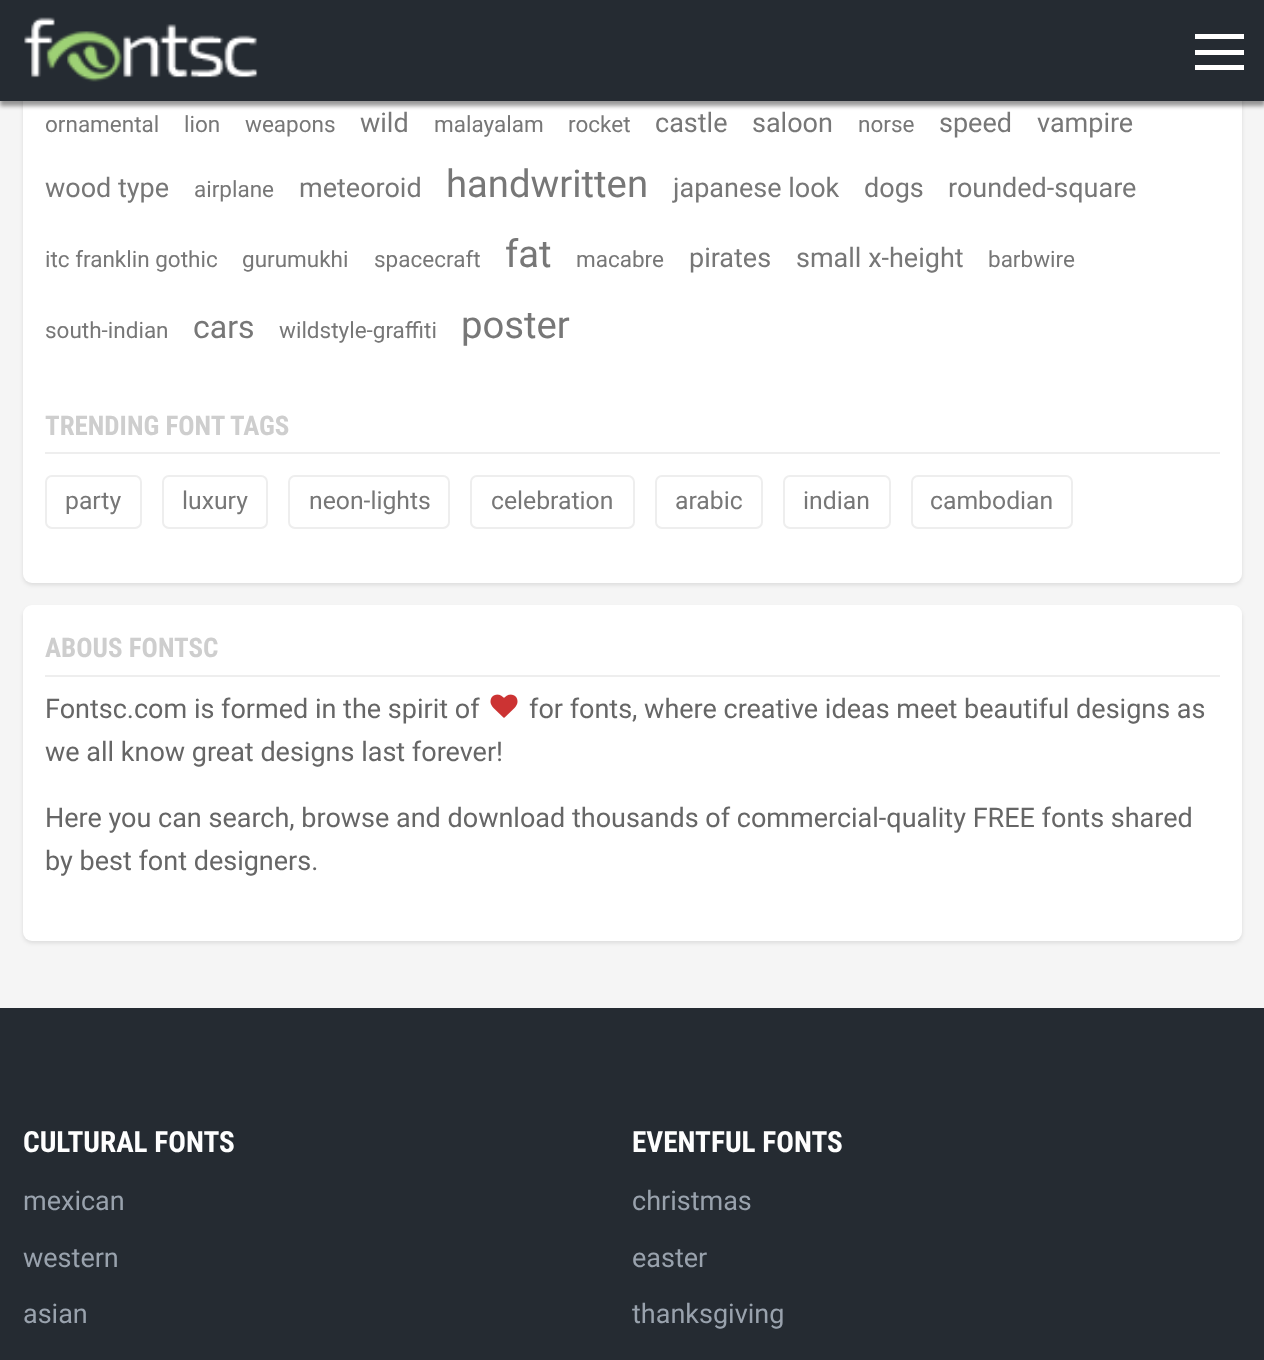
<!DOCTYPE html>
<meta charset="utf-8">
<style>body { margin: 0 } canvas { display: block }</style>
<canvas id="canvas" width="1264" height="1360"></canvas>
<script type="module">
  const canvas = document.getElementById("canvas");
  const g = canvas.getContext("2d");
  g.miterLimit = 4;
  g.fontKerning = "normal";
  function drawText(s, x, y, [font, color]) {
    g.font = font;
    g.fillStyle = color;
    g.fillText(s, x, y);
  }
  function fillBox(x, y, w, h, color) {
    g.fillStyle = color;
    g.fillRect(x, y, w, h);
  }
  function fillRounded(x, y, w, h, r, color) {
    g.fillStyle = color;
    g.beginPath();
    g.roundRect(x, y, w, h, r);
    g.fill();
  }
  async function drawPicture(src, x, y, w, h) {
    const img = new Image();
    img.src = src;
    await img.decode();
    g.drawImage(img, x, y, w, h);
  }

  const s1 = ["22.5px Roboto", "#777777"];
  const s2 = ["27px Roboto", "#777777"];
  const s3 = ["38.25px Roboto", "#777777"];
  const s4 = ["32px Roboto", "#777777"];
  const s5 = ["bold 27px Roboto Condensed", "#CECECE"];
  const s6 = ["24.75px Roboto", "#777777"];
  const s7 = ["27px Roboto", "#666666"];
  const s8 = ["bold 29.25px Roboto Condensed", "#FEFEFE"];
  const s9 = ["27px Roboto", "#99A2AD"];

  fillBox(0, 0, 1264, 1360, "#F5F5F5");
  g.fillStyle = "rgba(0, 0, 0, 0.1)";
  g.filter = "blur(2px)";
  g.beginPath();
  g.roundRect(23, -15, 1219, 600, 9);
  g.fill();
  g.filter = "none";
  fillRounded(23, -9, 1219, 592, 9, "#FFFFFF");
  g.fillStyle = "rgba(0, 0, 0, 0.4)";
  g.filter = "blur(2px)";
  g.beginPath();
  g.rect(0, 5, 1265, 101);
  g.fill();
  g.filter = "none";
  fillBox(0, 0, 1264, 101, "#252B32");
  await drawPicture("pic1.png", 24, 17, 234, 65);
  fillBox(1195, 34, 49, 5, "#FFFFFF");
  fillBox(1195, 50, 49, 5, "#FFFFFF");
  fillBox(1195, 65, 49, 5, "#FFFFFF");
  drawText("ornamental", 45, 132, s1);
  drawText("lion", 184, 132, s1);
  drawText("weapons", 245, 132, s1);
  drawText("wild", 360, 132, s2);
  drawText("malayalam", 434, 132, s1);
  drawText("rocket", 568, 132, s1);
  drawText("castle", 655, 132, s2);
  drawText("saloon", 752, 132, s2);
  drawText("norse", 858, 132, s1);
  drawText("speed", 939, 132, s2);
  drawText("vampire", 1037, 132, s2);
  drawText("wood type", 45, 197, s2);
  drawText("airplane", 194, 197, s1);
  drawText("meteoroid", 299, 197, s2);
  drawText("handwritten", 446, 197, s3);
  drawText("japanese look", 673, 197, s2);
  drawText("dogs", 864, 197, s2);
  drawText("rounded-square", 948, 197, s2);
  drawText("itc franklin gothic", 45, 267, s1);
  drawText("gurumukhi", 242, 267, s1);
  drawText("spacecraft", 374, 267, s1);
  drawText("fat", 505, 267, s3);
  drawText("macabre", 576, 267, s1);
  drawText("pirates", 689, 267, s2);
  drawText("small x-height", 796, 267, s2);
  drawText("barbwire", 988, 267, s1);
  drawText("south-indian", 45, 338, s1);
  drawText("cars", 193, 338, s4);
  drawText("wildstyle-graffiti", 279, 338, s1);
  drawText("poster", 461, 338, s3);
  fillBox(45, 452, 1175, 2, "#EEEEEE");
  drawText("TRENDING FONT TAGS", 45, 435, s5);
  g.beginPath();
  g.roundRect(46, 476, 95, 52, 6);
  g.strokeStyle = "#EEEEEE";
  g.lineWidth = 2;
  g.stroke();
  drawText("party", 65, 509, s6);
  g.beginPath();
  g.roundRect(163, 476, 104, 52, 6);
  g.stroke();
  drawText("luxury", 182, 509, s6);
  g.beginPath();
  g.roundRect(289, 476, 160, 52, 6);
  g.stroke();
  drawText("neon-lights", 309, 509, s6);
  g.beginPath();
  g.roundRect(471, 476, 163, 52, 6);
  g.stroke();
  drawText("celebration", 491, 509, s6);
  g.beginPath();
  g.roundRect(656, 476, 106, 52, 6);
  g.stroke();
  drawText("arabic", 675, 509, s6);
  g.beginPath();
  g.roundRect(784, 476, 106, 52, 6);
  g.stroke();
  drawText("indian", 803, 509, s6);
  g.beginPath();
  g.roundRect(912, 476, 160, 52, 6);
  g.stroke();
  drawText("cambodian", 930, 509, s6);
  g.fillStyle = "rgba(0, 0, 0, 0.1)";
  g.filter = "blur(2px)";
  g.beginPath();
  g.roundRect(23, 608, 1219, 335, 9);
  g.fill();
  g.filter = "none";
  fillRounded(23, 605, 1219, 336, 9, "#FFFFFF");
  fillBox(45, 675, 1175, 2, "#EEEEEE");
  drawText("ABOUS FONTSC", 45, 657, s5);
  drawText("Fontsc.com is formed in the spirit of", 45, 718, s7);
  await drawPicture("pic2.png", 490, 694, 28, 24);
  drawText("for fonts, where creative ideas meet beautiful designs as", 529, 718, s7);
  drawText("we all know great designs last forever!", 45, 761, s7);
  drawText("Here you can search, browse and download thousands of commercial-quality FREE fonts shared", 45, 827, s7);
  drawText("by best font designers.", 45, 870, s7);
  fillBox(0, 1008, 1264, 352, "#252B32");
  drawText("CULTURAL FONTS", 23, 1152, s8);
  drawText("mexican", 23, 1210, s9);
  drawText("western", 23, 1267, s9);
  drawText("asian", 23, 1323, s9);
  drawText("EVENTFUL FONTS", 632, 1152, s8);
  drawText("christmas", 632, 1210, s9);
  drawText("easter", 632, 1267, s9);
  drawText("thanksgiving", 632, 1323, s9);
</script>
